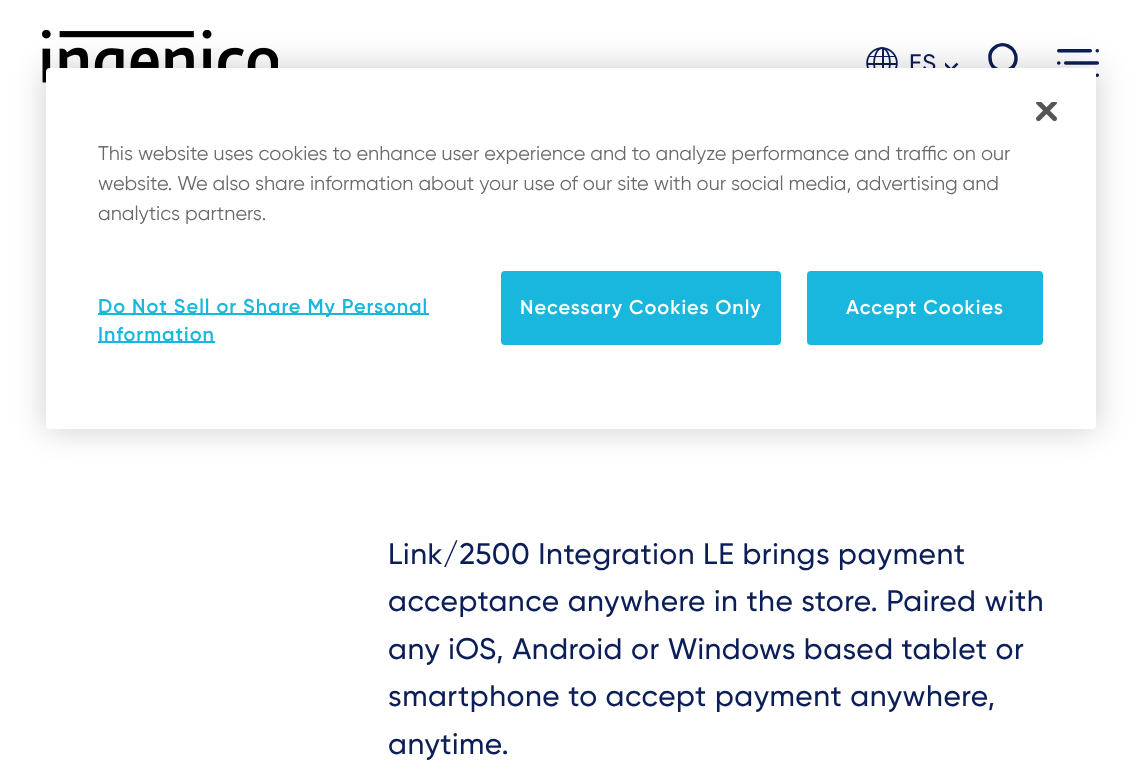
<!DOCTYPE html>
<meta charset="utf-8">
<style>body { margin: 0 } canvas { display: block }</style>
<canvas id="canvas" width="1141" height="772"></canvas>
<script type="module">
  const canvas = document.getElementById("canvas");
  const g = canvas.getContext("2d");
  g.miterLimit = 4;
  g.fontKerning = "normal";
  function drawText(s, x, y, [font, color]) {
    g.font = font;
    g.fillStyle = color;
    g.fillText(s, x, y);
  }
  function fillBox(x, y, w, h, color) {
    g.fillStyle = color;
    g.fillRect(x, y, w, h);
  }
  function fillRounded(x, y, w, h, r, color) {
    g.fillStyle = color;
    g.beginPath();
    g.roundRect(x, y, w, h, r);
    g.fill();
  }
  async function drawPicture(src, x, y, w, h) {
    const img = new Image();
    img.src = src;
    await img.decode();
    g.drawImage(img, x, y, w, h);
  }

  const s1 = ["500 24px Gilroy", "#0C1E58"];
  const s2 = ["500 29.75px Gilroy", "#0C1E58"];
  const s3 = ["19.9px gilroy", "#696969"];
  const s4 = ["600 19.9px Gilroy", "#19B6DD"];
  const s5 = ["600 19.9px Gilroy", "#FFFFFF"];

  fillBox(0, 0, 1141, 772, "#FFFFFF");
  await drawPicture("pic1.png", 42, 30, 236, 53);
  await drawPicture("pic2.png", 866, 47, 32, 21);
  g.letterSpacing = "0.55px";
  drawText("ES", 909, 71, s1);
  await drawPicture("pic3.png", 945, 62, 14, 6);
  g.beginPath();
  g.moveTo(993.5, 48.5);
  g.bezierCurveTo(1002, 40, 1017, 47, 1016, 59.5);
  g.bezierCurveTo(1014.5, 75, 990.5, 75, 990, 58);
  g.bezierCurveTo(989.5, 54.5, 991, 51, 993.5, 48.5);
  g.closePath();
  g.strokeStyle = "#0C1E58";
  g.lineWidth = 3.5;
  g.lineCap = "round";
  g.lineJoin = "round";
  g.stroke();
  await drawPicture("pic4.png", 1057, 49, 42, 28);
  drawText("Link/2500 Integration LE brings payment", 388, 564, s2);
  drawText("acceptance anywhere in the store. Paired with", 388, 611, s2);
  drawText("any iOS, Android or Windows based tablet or", 388, 659, s2);
  drawText("smartphone to accept payment anywhere,", 388, 706, s2);
  drawText("anytime.", 388, 754, s2);
  g.fillStyle = "rgba(0, 0, 0, 0.2)";
  g.filter = "blur(16px)";
  g.beginPath();
  g.roundRect(46, 68, 1050, 361, 4);
  g.fill();
  g.filter = "none";
  fillRounded(46, 68, 1050, 361, 4, "#FFFFFF");
  await drawPicture("pic5.png", 1036, 102, 21, 20);
  g.letterSpacing = "0px";
  drawText("This website uses cookies to enhance user experience and to analyze performance and traffic on our", 98, 160, s3);
  drawText("website. We also share information about your use of our site with our social media, advertising and", 98, 190, s3);
  drawText("analytics partners.", 98, 220, s3);
  fillBox(98, 313, 331, 2, "#19B6DD");
  g.letterSpacing = "1px";
  drawText("Do Not Sell or Share My Personal", 98, 313, s4);
  fillBox(98, 341, 117, 2, "#19B6DD");
  drawText("Information", 98, 341, s4);
  g.beginPath();
  g.roundRect(502, 272, 278, 72, 3);
  g.fill();
  g.strokeStyle = "#19B6DD";
  g.lineWidth = 2;
  g.lineJoin = "miter";
  g.stroke();
  drawText("Necessary Cookies Only", 520, 314, s5);
  g.fillStyle = "#19B6DD";
  g.beginPath();
  g.roundRect(808, 272, 234, 72, 3);
  g.fill();
  g.stroke();
  drawText("Accept Cookies", 846, 314, s5);
</script>
